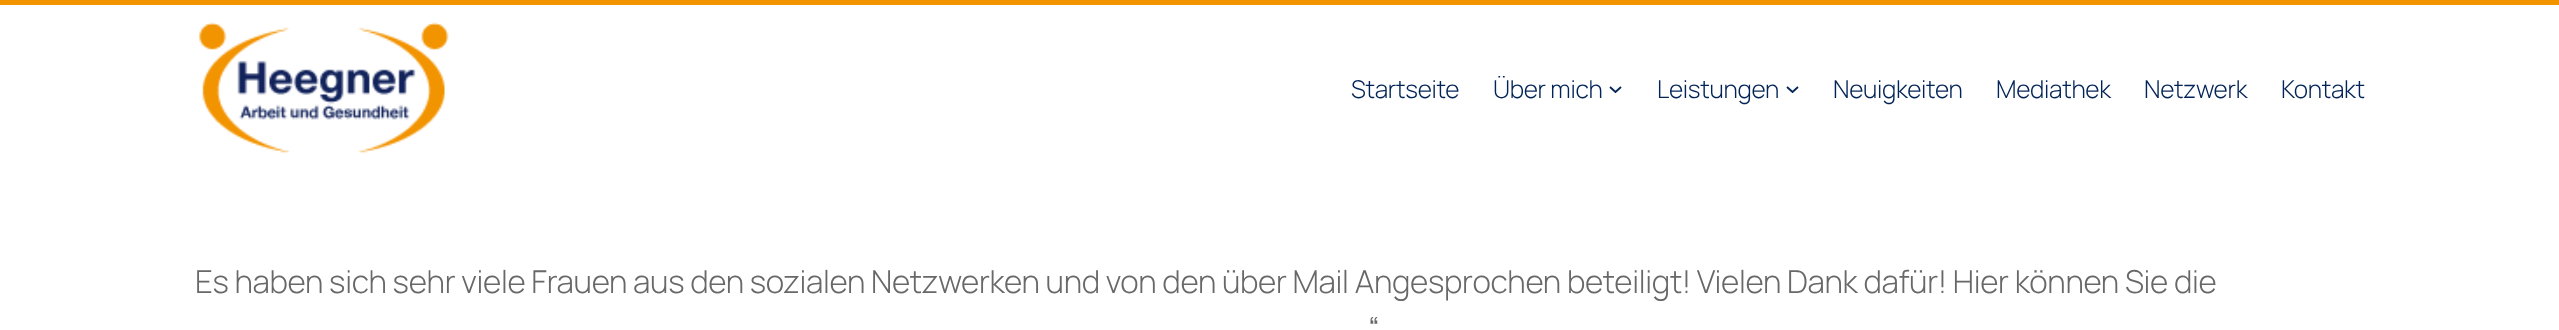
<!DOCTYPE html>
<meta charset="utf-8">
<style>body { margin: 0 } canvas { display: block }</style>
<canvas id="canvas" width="2559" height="330"></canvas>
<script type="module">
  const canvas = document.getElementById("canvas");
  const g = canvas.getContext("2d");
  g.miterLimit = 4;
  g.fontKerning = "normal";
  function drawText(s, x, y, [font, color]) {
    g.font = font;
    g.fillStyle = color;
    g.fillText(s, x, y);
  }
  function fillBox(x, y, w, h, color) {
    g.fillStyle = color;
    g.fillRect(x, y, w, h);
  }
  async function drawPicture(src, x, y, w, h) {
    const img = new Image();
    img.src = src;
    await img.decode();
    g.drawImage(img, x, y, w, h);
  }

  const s1 = ["300 24.5px Manrope", "#022357"];
  const s2 = ["300 31.5px Manrope", "#686868"];
  const s3 = ["31.5px Manrope", "#686868"];

  fillBox(0, 0, 2559, 330, "#FFFFFF");
  fillBox(0, 0, 2559, 5, "#F29300");
  await drawPicture("pic1.png", 199, 22, 250, 131);
  g.letterSpacing = "-0.32px";
  drawText("Startseite", 1351, 98, s1);
  drawText("Über mich", 1493, 98, s1);
  g.beginPath();
  g.moveTo(1610, 87);
  g.lineTo(1615.5, 92);
  g.lineTo(1621, 87);
  g.strokeStyle = "#022357";
  g.lineWidth = 1.8;
  g.stroke();
  drawText("Leistungen", 1657, 98, s1);
  g.beginPath();
  g.moveTo(1787, 87);
  g.lineTo(1792.5, 92);
  g.lineTo(1798, 87);
  g.stroke();
  drawText("Neuigkeiten", 1833, 98, s1);
  drawText("Mediathek", 1996, 98, s1);
  drawText("Netzwerk", 2144, 98, s1);
  drawText("Kontakt", 2281, 98, s1);
  drawText("Es haben sich sehr viele Frauen aus den sozialen Netzwerken und von den über Mail Angesprochen beteiligt! Vielen Dank dafür! Hier können Sie die", 195, 293, s2);
  drawText("“", 1368, 340, s3);
</script>
